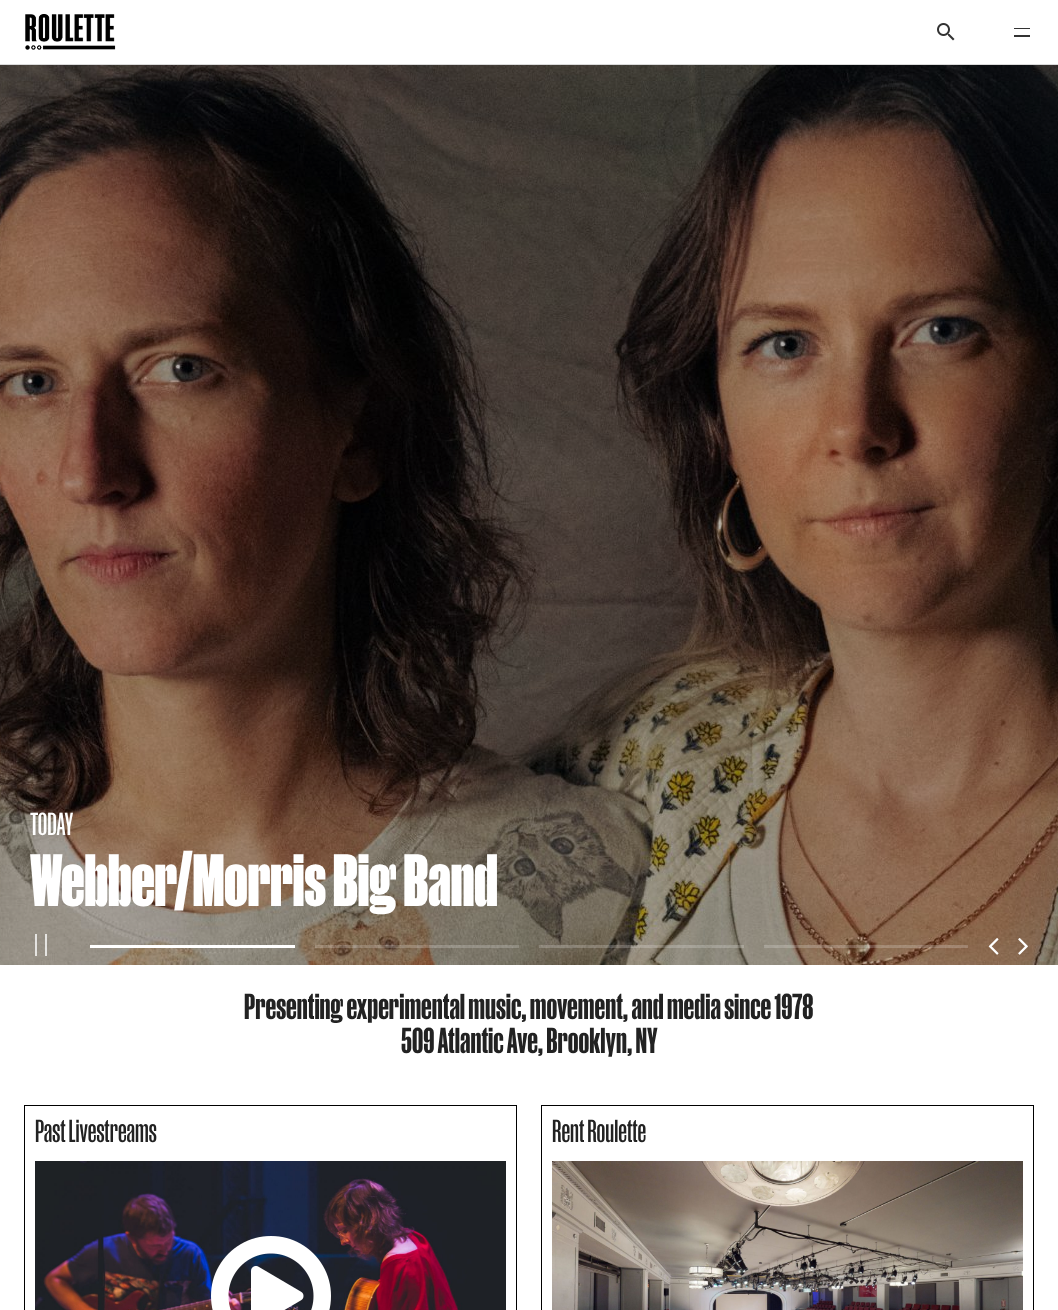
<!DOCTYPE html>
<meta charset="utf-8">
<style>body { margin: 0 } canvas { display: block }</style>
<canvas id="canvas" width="1058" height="1310"></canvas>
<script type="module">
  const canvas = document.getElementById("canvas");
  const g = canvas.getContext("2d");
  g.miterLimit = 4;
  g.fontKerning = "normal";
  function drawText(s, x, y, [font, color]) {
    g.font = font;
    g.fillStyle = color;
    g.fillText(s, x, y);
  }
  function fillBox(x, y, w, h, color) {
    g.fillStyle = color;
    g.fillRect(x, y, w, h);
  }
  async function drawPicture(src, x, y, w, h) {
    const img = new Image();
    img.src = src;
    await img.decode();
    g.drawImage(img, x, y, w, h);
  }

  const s1 = ["500 30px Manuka", "#FFFFFF"];
  const s2 = ["900 70px Manuka", "#FFFFFF"];
  const s3 = ["bold 34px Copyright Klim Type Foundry", "#222222"];
  const s4 = ["500 30px Manuka", "#222222"];

  fillBox(0, 0, 1058, 1310, "#FFFFFF");
  fillBox(0, 64, 1058, 1, "#DADADA");
  await drawPicture("pic1.png", 25, 14, 91, 36);
  await drawPicture("pic2.png", 937, 23, 18, 18);
  fillBox(1014, 28, 16, 1, "#333333");
  fillBox(1014, 35, 16, 2, "#333333");
  await drawPicture("pic3.png", 0, 65, 1058, 900);
  drawText("TODAY", 30, 835, s1);
  drawText("Webber/Morris Big Band", 30, 906, s2);
  fillBox(90, 945, 205, 3, "#FFFFFF");
  fillBox(315, 945, 204, 3, "rgba(255, 255, 255, 0.2)");
  fillBox(539, 945, 205, 3, "rgba(255, 255, 255, 0.2)");
  fillBox(764, 945, 204, 3, "rgba(255, 255, 255, 0.2)");
  await drawPicture("pic4.png", 988, 938, 11, 17);
  await drawPicture("pic5.png", 1018, 938, 10, 17);
  await drawPicture("pic6.png", 35, 934, 12, 22);
  drawText("Presenting experimental music, movement, and media since 1978", 244, 1019, s3);
  drawText("509 Atlantic Ave, Brooklyn, NY", 401, 1053, s3);
  g.strokeStyle = "#000000";
  g.strokeRect(24.5, 1105.5, 492, 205);
  drawText("Past Livestreams", 35, 1142, s4);
  await drawPicture("pic7.png", 35, 1161, 471, 149);
  await drawPicture("pic8.png", 211, 1236, 120, 74);
  g.strokeRect(541.5, 1105.5, 492, 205);
  drawText("Rent Roulette", 552, 1142, s4);
  await drawPicture("pic9.png", 552, 1161, 471, 149);
</script>
